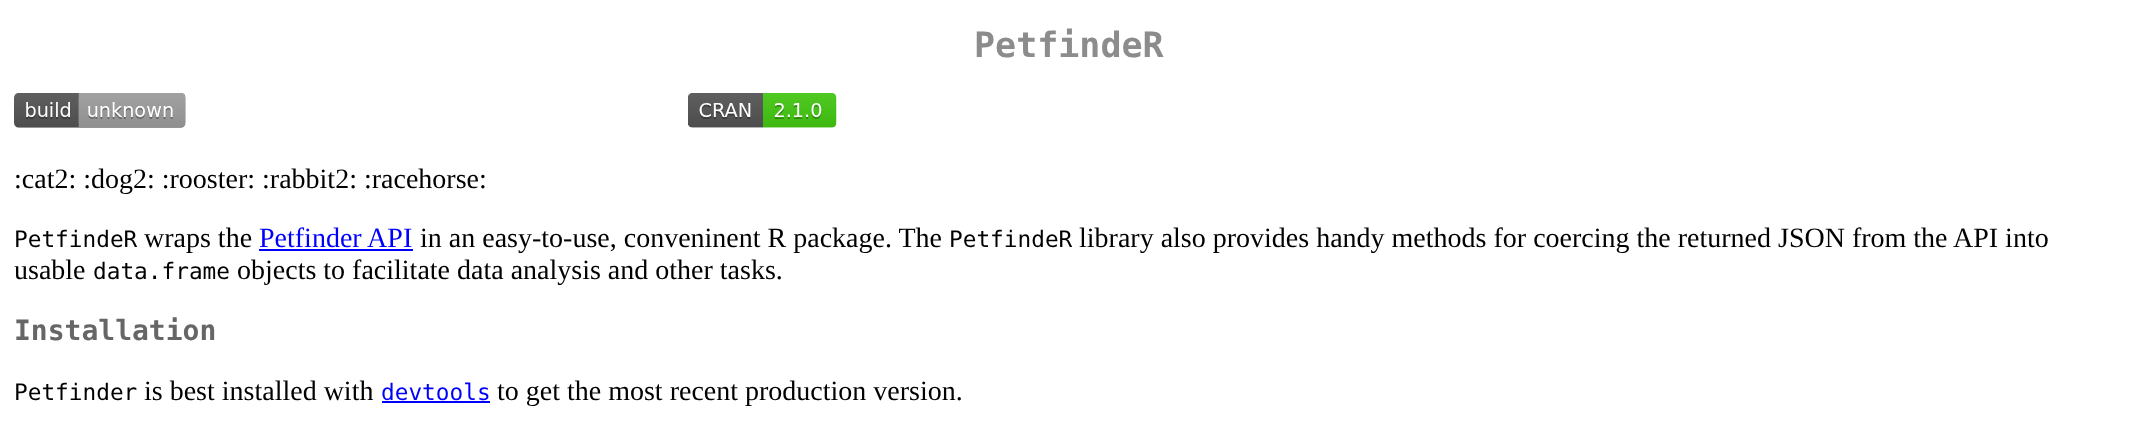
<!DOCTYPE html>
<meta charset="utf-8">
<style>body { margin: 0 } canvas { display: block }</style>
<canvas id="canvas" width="2137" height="442"></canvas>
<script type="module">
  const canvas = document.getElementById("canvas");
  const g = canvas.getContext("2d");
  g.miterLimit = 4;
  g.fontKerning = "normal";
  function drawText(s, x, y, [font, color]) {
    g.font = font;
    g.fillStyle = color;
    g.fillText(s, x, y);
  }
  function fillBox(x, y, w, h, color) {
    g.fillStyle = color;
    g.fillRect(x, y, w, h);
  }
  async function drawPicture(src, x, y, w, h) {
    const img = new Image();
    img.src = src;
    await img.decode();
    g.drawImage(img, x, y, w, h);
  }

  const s1 = ["bold 35px DejaVu Sans Mono", "#8C8C8C"];
  const s2 = ["28px Liberation Serif", "#000000"];
  const s3 = ["22.75px DejaVu Sans Mono", "#000000"];
  const s4 = ["28px Liberation Serif", "#0000FF"];
  const s5 = ["bold 28px DejaVu Sans Mono", "#666666"];
  const s6 = ["22.75px DejaVu Sans Mono", "#0000FF"];

  fillBox(0, 0, 2137, 442, "#FFFFFF");
  drawText("PetfindeR", 974, 57, s1);
  await drawPicture("pic1.png", 14, 93, 172, 35);
  await drawPicture("pic2.png", 688, 93, 149, 35);
  drawText(":cat2: :dog2: :rooster: :rabbit2: :racehorse:", 14, 188, s2);
  drawText("PetfindeR", 14, 247, s3);
  drawText("wraps the", 144, 247, s2);
  drawText("Petfinder API", 259, 247, s4);
  fillBox(259, 249, 154, 2, "#0000FF");
  drawText("in an easy-to-use, conveninent R package. The", 420, 247, s2);
  drawText("PetfindeR", 949, 247, s3);
  drawText("library also provides handy methods for coercing the returned JSON from the API into", 1079, 247, s2);
  drawText("usable", 14, 279, s2);
  drawText("data.frame", 93, 279, s3);
  drawText("objects to facilitate data analysis and other tasks.", 237, 279, s2);
  drawText("Installation", 14, 340, s5);
  drawText("Petfinder", 14, 400, s3);
  drawText("is best installed with", 144, 400, s2);
  drawText("devtools", 381, 400, s6);
  fillBox(382, 401, 108, 2, "#0000FF");
  drawText("to get the most recent production version.", 497, 400, s2);
</script>
